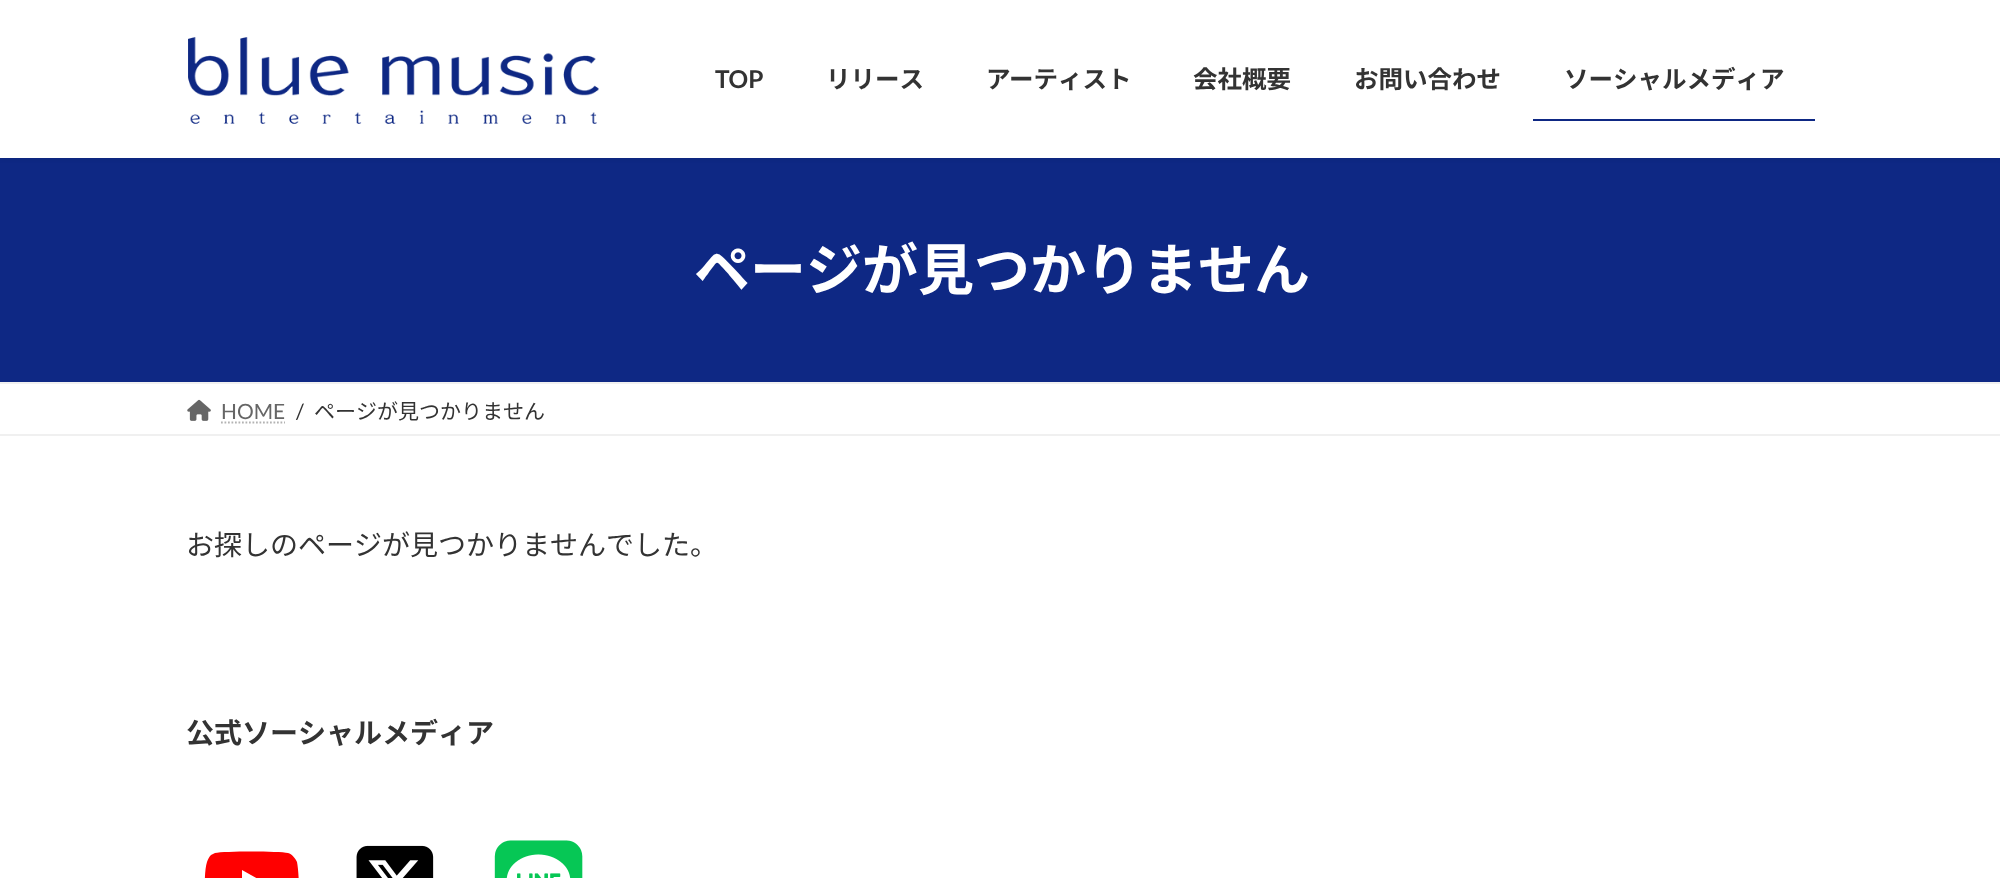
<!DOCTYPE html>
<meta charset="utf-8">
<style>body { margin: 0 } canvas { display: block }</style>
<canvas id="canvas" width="2000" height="878"></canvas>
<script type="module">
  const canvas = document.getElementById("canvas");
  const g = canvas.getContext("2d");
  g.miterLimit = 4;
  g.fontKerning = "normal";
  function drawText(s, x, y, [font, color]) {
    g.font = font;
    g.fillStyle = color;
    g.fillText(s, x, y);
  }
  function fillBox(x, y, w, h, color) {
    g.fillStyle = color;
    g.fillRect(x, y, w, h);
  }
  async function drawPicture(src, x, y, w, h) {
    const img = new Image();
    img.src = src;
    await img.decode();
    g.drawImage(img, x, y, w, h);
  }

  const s1 = ["bold 24.5px Lato", "#333333"];
  const s2 = ["bold 24.5px Noto Sans JP", "#333333"];
  const s3 = ["bold 56px Noto Sans JP", "#FFFFFF"];
  const s4 = ["21px Lato", "#666666"];
  const s5 = ["21px Lato", "#333333"];
  const s6 = ["21px Noto Sans JP", "#333333"];
  const s7 = ["28px Noto Sans JP", "#333333"];
  const s8 = ["bold 28px Noto Sans JP", "#333333"];

  fillBox(0, 0, 2000, 878, "#FFFFFF");
  fillBox(0, 158, 2000, 224, "#0E2884");
  g.fillStyle = "rgba(0, 0, 0, 0.05)";
  g.filter = "blur(2.5px)";
  g.beginPath();
  g.rect(0, 2, 2000, 157);
  g.fill();
  g.filter = "none";
  fillBox(0, 0, 2000, 158, "#FFFFFF");
  await drawPicture("pic1.png", 188, 37, 411, 87);
  drawText("TOP", 715, 88, s1);
  drawText("リリース", 826, 88, s2);
  drawText("アーティスト", 986, 88, s2);
  drawText("会社概要", 1193, 88, s2);
  drawText("お問い合わせ", 1354, 88, s2);
  drawText("ソーシャルメディア", 1564, 88, s2);
  fillBox(1533, 119, 282, 2, "#0E2884");
  drawText("ページが見つかりません", 694, 290, s3);
  fillBox(0, 382, 2000, 2, "#F0F0F0");
  fillBox(0, 434, 2000, 2, "#F0F0F0");
  await drawPicture("pic2.png", 187, 399, 24, 22);
  drawText("HOME", 221, 419, s4);
  g.beginPath();
  g.moveTo(221, 422.5);
  g.lineTo(285, 422.5);
  g.strokeStyle = "#B3B3B3";
  g.lineWidth = 1.8;
  g.setLineDash([1.75, 1.75]);
  g.stroke();
  drawText("/", 296, 419, s5);
  drawText("ページが見つかりません", 314, 419, s6);
  drawText("お探しのページが見つかりませんでした。", 186, 555, s7);
  drawText("公式ソーシャルメディア", 186, 743, s8);
  g.fillStyle = "#FF0000";
  g.beginPath();
  g.moveTo(297, 862);
  g.bezierCurveTo(295, 858, 292, 854, 288, 853);
  g.bezierCurveTo(279, 851, 224, 851, 215, 853);
  g.lineTo(211, 855);
  g.bezierCurveTo(209, 857, 208, 859, 207, 862);
  g.bezierCurveTo(204, 871, 204, 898, 207, 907);
  g.bezierCurveTo(208, 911, 211, 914, 215, 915);
  g.bezierCurveTo(225, 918, 278, 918, 288, 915);
  g.bezierCurveTo(290, 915, 292, 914, 293, 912);
  g.bezierCurveTo(301, 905, 299, 872, 297, 862);
  g.closePath();
  g.moveTo(242, 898);
  g.lineTo(242, 870);
  g.lineTo(242, 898);
  g.lineTo(242, 870);
  g.lineTo(267, 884);
  g.closePath();
  g.fill();
  await drawPicture("pic3.png", 356, 845, 78, 33);
  await drawPicture("pic4.png", 494, 840, 89, 38);
</script>
